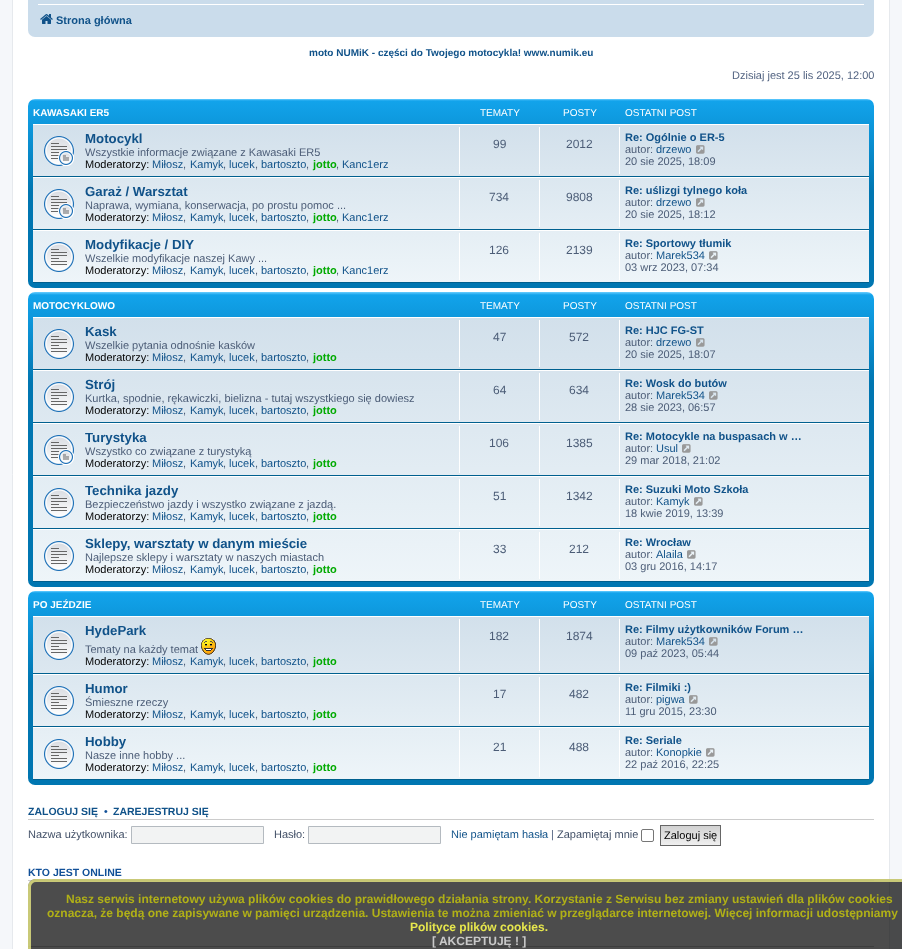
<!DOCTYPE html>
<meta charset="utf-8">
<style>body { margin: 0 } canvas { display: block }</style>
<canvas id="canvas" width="902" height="949"></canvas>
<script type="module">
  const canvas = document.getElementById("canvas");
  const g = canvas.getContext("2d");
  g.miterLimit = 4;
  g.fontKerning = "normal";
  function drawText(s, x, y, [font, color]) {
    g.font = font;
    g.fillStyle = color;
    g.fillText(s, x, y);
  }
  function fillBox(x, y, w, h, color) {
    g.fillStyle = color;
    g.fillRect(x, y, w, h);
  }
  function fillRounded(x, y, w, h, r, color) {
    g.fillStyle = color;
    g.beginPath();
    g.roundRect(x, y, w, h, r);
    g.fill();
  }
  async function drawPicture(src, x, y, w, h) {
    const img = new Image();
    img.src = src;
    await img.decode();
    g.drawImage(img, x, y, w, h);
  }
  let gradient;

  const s1 = ["bold 11px Liberation Sans", "#105289"];
  const s2 = ["bold 10px Liberation Sans", "#105289"];
  const s3 = ["11px Liberation Sans", "#536482"];
  const s4 = ["bold 10px Liberation Sans", "#FFFFFF"];
  const s5 = ["10px Liberation Sans", "#FFFFFF"];
  const s6 = ["bold 13.25px Liberation Sans", "#105289"];
  const s7 = ["11px Liberation Sans", "#4C5D77"];
  const s8 = ["11px Liberation Sans", "#000000"];
  const s9 = ["11px Liberation Sans", "#105289"];
  const s10 = ["bold 11px Liberation Sans", "#00AA00"];
  const s11 = ["12px Liberation Sans", "#4C5D77"];
  const s12 = ["bold 10.5px Liberation Sans", "#105289"];
  const s13 = ["bold 10.5px Liberation Sans", "#115098"];
  const s14 = ["11px Liberation Sans", "#425067"];
  const s15 = ["bold 12px Liberation Sans", "#B0B017"];
  const s16 = ["bold 12px Liberation Sans", "#E6E64D"];
  const s17 = ["bold 12px Liberation Sans", "#C9C9C9"];

  fillBox(0, 0, 902, 949, "#F5F7FA");
  g.fillStyle = "#FFFFFF";
  g.beginPath();
  g.rect(12.5, -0.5, 877, 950);
  g.fill();
  g.strokeStyle = "#E6E9ED";
  g.stroke();
  fillRounded(28, -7, 846, 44, 7, "#CADCEB");
  fillBox(38, 4, 826, 1, "#FFFFFF");
  await drawPicture("pic1.png", 40, 14, 13, 10);
  drawText("Strona główna", 56, 24, s1);
  drawText("moto NUMiK - części do Twojego motocykla! www.numik.eu", 309, 56, s2);
  drawText("Dzisiaj jest 25 lis 2025, 12:00", 732, 79, s3);
  gradient = g.createLinearGradient(451, 99, 451, 288);
  gradient.addColorStop(0, "#6ACEFF");
  gradient.addColorStop(0.01, "#12A3EB");
  gradient.addColorStop(0.49, "#0076B1");
  gradient.addColorStop(1, "#0076B1");
  g.fillStyle = gradient;
  g.beginPath();
  g.roundRect(28, 99, 846, 189, 7);
  g.fill();
  drawText("KAWASAKI ER5", 33, 116, s4);
  drawText("TEMATY", 480, 116, s5);
  drawText("POSTY", 563, 116, s5);
  drawText("OSTATNI POST", 625, 116, s5);
  gradient = g.createLinearGradient(451, 124, 451, 283);
  gradient.addColorStop(0, "#D2E0EB");
  gradient.addColorStop(1, "#EEF5F9");
  g.fillStyle = gradient;
  g.fillRect(33, 125, 836, 157);
  fillBox(33, 124, 836, 1, "#FFFFFF");
  fillBox(33, 176, 836, 1, "#00608F");
  await drawPicture("pic2.png", 44, 136, 30, 30);
  drawText("Motocykl", 85, 143, s6);
  drawText("Wszystkie informacje związane z Kawasaki ER5", 85, 156, s7);
  drawText("Moderatorzy:", 85, 168, s8);
  drawText("Miłosz", 152, 168, s9);
  drawText(",", 183, 168, s7);
  drawText("Kamyk", 190, 168, s9);
  drawText(",", 223, 168, s7);
  drawText("lucek", 229, 168, s9);
  drawText(",", 255, 168, s7);
  drawText("bartoszto", 261, 168, s9);
  drawText(",", 306, 168, s7);
  drawText("jotto", 313, 168, s10);
  drawText(",", 336, 168, s7);
  drawText("Kanc1erz", 342, 168, s9);
  fillBox(459, 127, 1, 47, "#FFFFFF");
  drawText("99", 493, 148, s11);
  fillBox(539, 127, 1, 47, "#FFFFFF");
  drawText("2012", 566, 148, s11);
  fillBox(619, 127, 1, 47, "#FFFFFF");
  drawText("Re: Ogólnie o ER-5", 625, 141, s1);
  drawText("autor:", 625, 153, s7);
  drawText("drzewo", 656, 153, s9);
  await drawPicture("pic3.png", 696, 145, 9, 9);
  drawText("20 sie 2025, 18:09", 625, 165, s7);
  fillBox(33, 177, 836, 1, "#FFFFFF");
  fillBox(33, 229, 836, 1, "#00608F");
  await drawPicture("pic4.png", 44, 189, 30, 30);
  drawText("Garaż / Warsztat", 85, 196, s6);
  drawText("Naprawa, wymiana, konserwacja, po prostu pomoc ...", 85, 209, s7);
  drawText("Moderatorzy:", 85, 221, s8);
  drawText("Miłosz", 152, 221, s9);
  drawText(",", 183, 221, s7);
  drawText("Kamyk", 190, 221, s9);
  drawText(",", 223, 221, s7);
  drawText("lucek", 229, 221, s9);
  drawText(",", 255, 221, s7);
  drawText("bartoszto", 261, 221, s9);
  drawText(",", 306, 221, s7);
  drawText("jotto", 313, 221, s10);
  drawText(",", 336, 221, s7);
  drawText("Kanc1erz", 342, 221, s9);
  fillBox(459, 180, 1, 47, "#FFFFFF");
  drawText("734", 489, 201, s11);
  fillBox(539, 180, 1, 47, "#FFFFFF");
  drawText("9808", 566, 201, s11);
  fillBox(619, 180, 1, 47, "#FFFFFF");
  drawText("Re: uślizgi tylnego koła", 625, 194, s1);
  drawText("autor:", 625, 206, s7);
  drawText("drzewo", 656, 206, s9);
  await drawPicture("pic5.png", 696, 198, 9, 9);
  drawText("20 sie 2025, 18:12", 625, 218, s7);
  fillBox(33, 230, 836, 1, "#FFFFFF");
  fillBox(33, 282, 836, 1, "#00608F");
  await drawPicture("pic6.png", 44, 242, 30, 30);
  drawText("Modyfikacje / DIY", 85, 249, s6);
  drawText("Wszelkie modyfikacje naszej Kawy ...", 85, 262, s7);
  drawText("Moderatorzy:", 85, 274, s8);
  drawText("Miłosz", 152, 274, s9);
  drawText(",", 183, 274, s7);
  drawText("Kamyk", 190, 274, s9);
  drawText(",", 223, 274, s7);
  drawText("lucek", 229, 274, s9);
  drawText(",", 255, 274, s7);
  drawText("bartoszto", 261, 274, s9);
  drawText(",", 306, 274, s7);
  drawText("jotto", 313, 274, s10);
  drawText(",", 336, 274, s7);
  drawText("Kanc1erz", 342, 274, s9);
  fillBox(459, 233, 1, 47, "#FFFFFF");
  drawText("126", 489, 254, s11);
  fillBox(539, 233, 1, 47, "#FFFFFF");
  drawText("2139", 566, 254, s11);
  fillBox(619, 233, 1, 47, "#FFFFFF");
  drawText("Re: Sportowy tłumik", 625, 247, s1);
  drawText("autor:", 625, 259, s7);
  drawText("Marek534", 656, 259, s9);
  await drawPicture("pic7.png", 709, 251, 9, 9);
  drawText("03 wrz 2023, 07:34", 625, 271, s7);
  gradient = g.createLinearGradient(451, 292, 451, 587);
  gradient.addColorStop(0, "#6ACEFF");
  gradient.addColorStop(0.01, "#12A3EB");
  gradient.addColorStop(0.31, "#0076B1");
  gradient.addColorStop(1, "#0076B1");
  g.fillStyle = gradient;
  g.beginPath();
  g.roundRect(28, 292, 846, 295, 7);
  g.fill();
  drawText("MOTOCYKLOWO", 33, 309, s4);
  drawText("TEMATY", 480, 309, s5);
  drawText("POSTY", 563, 309, s5);
  drawText("OSTATNI POST", 625, 309, s5);
  gradient = g.createLinearGradient(451, 317, 451, 582);
  gradient.addColorStop(0, "#D2E0EB");
  gradient.addColorStop(1, "#EEF5F9");
  g.fillStyle = gradient;
  g.fillRect(33, 318, 836, 263);
  fillBox(33, 317, 836, 1, "#FFFFFF");
  fillBox(33, 369, 836, 1, "#00608F");
  await drawPicture("pic8.png", 44, 329, 30, 30);
  drawText("Kask", 85, 336, s6);
  drawText("Wszelkie pytania odnośnie kasków", 85, 349, s7);
  drawText("Moderatorzy:", 85, 361, s8);
  drawText("Miłosz", 152, 361, s9);
  drawText(",", 183, 361, s7);
  drawText("Kamyk", 190, 361, s9);
  drawText(",", 223, 361, s7);
  drawText("lucek", 229, 361, s9);
  drawText(",", 255, 361, s7);
  drawText("bartoszto", 261, 361, s9);
  drawText(",", 306, 361, s7);
  drawText("jotto", 313, 361, s10);
  fillBox(459, 320, 1, 47, "#FFFFFF");
  drawText("47", 493, 341, s11);
  fillBox(539, 320, 1, 47, "#FFFFFF");
  drawText("572", 569, 341, s11);
  fillBox(619, 320, 1, 47, "#FFFFFF");
  drawText("Re: HJC FG-ST", 625, 334, s1);
  drawText("autor:", 625, 346, s7);
  drawText("drzewo", 656, 346, s9);
  await drawPicture("pic9.png", 696, 338, 9, 9);
  drawText("20 sie 2025, 18:07", 625, 358, s7);
  fillBox(33, 370, 836, 1, "#FFFFFF");
  fillBox(33, 422, 836, 1, "#00608F");
  await drawPicture("pic10.png", 44, 382, 30, 30);
  drawText("Strój", 85, 389, s6);
  drawText("Kurtka, spodnie, rękawiczki, bielizna - tutaj wszystkiego się dowiesz", 85, 402, s7);
  drawText("Moderatorzy:", 85, 414, s8);
  drawText("Miłosz", 152, 414, s9);
  drawText(",", 183, 414, s7);
  drawText("Kamyk", 190, 414, s9);
  drawText(",", 223, 414, s7);
  drawText("lucek", 229, 414, s9);
  drawText(",", 255, 414, s7);
  drawText("bartoszto", 261, 414, s9);
  drawText(",", 306, 414, s7);
  drawText("jotto", 313, 414, s10);
  fillBox(459, 373, 1, 47, "#FFFFFF");
  drawText("64", 493, 394, s11);
  fillBox(539, 373, 1, 47, "#FFFFFF");
  drawText("634", 569, 394, s11);
  fillBox(619, 373, 1, 47, "#FFFFFF");
  drawText("Re: Wosk do butów", 625, 387, s1);
  drawText("autor:", 625, 399, s7);
  drawText("Marek534", 656, 399, s9);
  await drawPicture("pic11.png", 709, 391, 9, 9);
  drawText("28 sie 2023, 06:57", 625, 411, s7);
  fillBox(33, 423, 836, 1, "#FFFFFF");
  fillBox(33, 475, 836, 1, "#00608F");
  await drawPicture("pic12.png", 44, 435, 30, 30);
  drawText("Turystyka", 85, 442, s6);
  drawText("Wszystko co związane z turystyką", 85, 455, s7);
  drawText("Moderatorzy:", 85, 467, s8);
  drawText("Miłosz", 152, 467, s9);
  drawText(",", 183, 467, s7);
  drawText("Kamyk", 190, 467, s9);
  drawText(",", 223, 467, s7);
  drawText("lucek", 229, 467, s9);
  drawText(",", 255, 467, s7);
  drawText("bartoszto", 261, 467, s9);
  drawText(",", 306, 467, s7);
  drawText("jotto", 313, 467, s10);
  fillBox(459, 426, 1, 47, "#FFFFFF");
  drawText("106", 489, 447, s11);
  fillBox(539, 426, 1, 47, "#FFFFFF");
  drawText("1385", 566, 447, s11);
  fillBox(619, 426, 1, 47, "#FFFFFF");
  drawText("Re: Motocykle na buspasach w …", 625, 440, s1);
  drawText("autor:", 625, 452, s7);
  drawText("Usul", 656, 452, s9);
  await drawPicture("pic13.png", 682, 444, 9, 9);
  drawText("29 mar 2018, 21:02", 625, 464, s7);
  fillBox(33, 476, 836, 1, "#FFFFFF");
  fillBox(33, 528, 836, 1, "#00608F");
  await drawPicture("pic14.png", 44, 488, 30, 30);
  drawText("Technika jazdy", 85, 495, s6);
  drawText("Bezpieczeństwo jazdy i wszystko związane z jazdą.", 85, 508, s7);
  drawText("Moderatorzy:", 85, 520, s8);
  drawText("Miłosz", 152, 520, s9);
  drawText(",", 183, 520, s7);
  drawText("Kamyk", 190, 520, s9);
  drawText(",", 223, 520, s7);
  drawText("lucek", 229, 520, s9);
  drawText(",", 255, 520, s7);
  drawText("bartoszto", 261, 520, s9);
  drawText(",", 306, 520, s7);
  drawText("jotto", 313, 520, s10);
  fillBox(459, 479, 1, 47, "#FFFFFF");
  drawText("51", 493, 500, s11);
  fillBox(539, 479, 1, 47, "#FFFFFF");
  drawText("1342", 566, 500, s11);
  fillBox(619, 479, 1, 47, "#FFFFFF");
  drawText("Re: Suzuki Moto Szkoła", 625, 493, s1);
  drawText("autor:", 625, 505, s7);
  drawText("Kamyk", 656, 505, s9);
  await drawPicture("pic15.png", 694, 497, 9, 9);
  drawText("18 kwie 2019, 13:39", 625, 517, s7);
  fillBox(33, 529, 836, 1, "#FFFFFF");
  fillBox(33, 581, 836, 1, "#00608F");
  await drawPicture("pic16.png", 44, 541, 30, 30);
  drawText("Sklepy, warsztaty w danym mieście", 85, 548, s6);
  drawText("Najlepsze sklepy i warsztaty w naszych miastach", 85, 561, s7);
  drawText("Moderatorzy:", 85, 573, s8);
  drawText("Miłosz", 152, 573, s9);
  drawText(",", 183, 573, s7);
  drawText("Kamyk", 190, 573, s9);
  drawText(",", 223, 573, s7);
  drawText("lucek", 229, 573, s9);
  drawText(",", 255, 573, s7);
  drawText("bartoszto", 261, 573, s9);
  drawText(",", 306, 573, s7);
  drawText("jotto", 313, 573, s10);
  fillBox(459, 532, 1, 47, "#FFFFFF");
  drawText("33", 493, 553, s11);
  fillBox(539, 532, 1, 47, "#FFFFFF");
  drawText("212", 569, 553, s11);
  fillBox(619, 532, 1, 47, "#FFFFFF");
  drawText("Re: Wrocław", 625, 546, s1);
  drawText("autor:", 625, 558, s7);
  drawText("Alaila", 656, 558, s9);
  await drawPicture("pic17.png", 687, 550, 9, 9);
  drawText("03 gru 2016, 14:17", 625, 570, s7);
  gradient = g.createLinearGradient(451, 591, 451, 785);
  gradient.addColorStop(0, "#6ACEFF");
  gradient.addColorStop(0.01, "#12A3EB");
  gradient.addColorStop(0.47, "#0076B1");
  gradient.addColorStop(1, "#0076B1");
  g.fillStyle = gradient;
  g.beginPath();
  g.roundRect(28, 591, 846, 194, 7);
  g.fill();
  drawText("PO JEŹDZIE", 33, 608, s4);
  drawText("TEMATY", 480, 608, s5);
  drawText("POSTY", 563, 608, s5);
  drawText("OSTATNI POST", 625, 608, s5);
  gradient = g.createLinearGradient(451, 616, 451, 780);
  gradient.addColorStop(0, "#D2E0EB");
  gradient.addColorStop(1, "#EEF5F9");
  g.fillStyle = gradient;
  g.fillRect(33, 617, 836, 162);
  fillBox(33, 616, 836, 1, "#FFFFFF");
  fillBox(33, 673, 836, 1, "#00608F");
  await drawPicture("pic18.png", 44, 630, 30, 30);
  drawText("HydePark", 85, 635, s6);
  drawText("Tematy na każdy temat", 85, 653, s7);
  await drawPicture("pic19.png", 201, 638, 15, 17);
  drawText("Moderatorzy:", 85, 665, s8);
  drawText("Miłosz", 152, 665, s9);
  drawText(",", 183, 665, s7);
  drawText("Kamyk", 190, 665, s9);
  drawText(",", 223, 665, s7);
  drawText("lucek", 229, 665, s9);
  drawText(",", 255, 665, s7);
  drawText("bartoszto", 261, 665, s9);
  drawText(",", 306, 665, s7);
  drawText("jotto", 313, 665, s10);
  fillBox(459, 619, 1, 52, "#FFFFFF");
  drawText("182", 489, 640, s11);
  fillBox(539, 619, 1, 52, "#FFFFFF");
  drawText("1874", 566, 640, s11);
  fillBox(619, 619, 1, 52, "#FFFFFF");
  drawText("Re: Filmy użytkowników Forum …", 625, 633, s1);
  drawText("autor:", 625, 645, s7);
  drawText("Marek534", 656, 645, s9);
  await drawPicture("pic20.png", 709, 637, 9, 9);
  drawText("09 paź 2023, 05:44", 625, 657, s7);
  fillBox(33, 674, 836, 1, "#FFFFFF");
  fillBox(33, 726, 836, 1, "#00608F");
  await drawPicture("pic21.png", 44, 686, 30, 30);
  drawText("Humor", 85, 693, s6);
  drawText("Śmieszne rzeczy", 85, 706, s7);
  drawText("Moderatorzy:", 85, 718, s8);
  drawText("Miłosz", 152, 718, s9);
  drawText(",", 183, 718, s7);
  drawText("Kamyk", 190, 718, s9);
  drawText(",", 223, 718, s7);
  drawText("lucek", 229, 718, s9);
  drawText(",", 255, 718, s7);
  drawText("bartoszto", 261, 718, s9);
  drawText(",", 306, 718, s7);
  drawText("jotto", 313, 718, s10);
  fillBox(459, 677, 1, 47, "#FFFFFF");
  drawText("17", 493, 698, s11);
  fillBox(539, 677, 1, 47, "#FFFFFF");
  drawText("482", 569, 698, s11);
  fillBox(619, 677, 1, 47, "#FFFFFF");
  drawText("Re: Filmiki :)", 625, 691, s1);
  drawText("autor:", 625, 703, s7);
  drawText("pigwa", 656, 703, s9);
  await drawPicture("pic22.png", 689, 695, 9, 9);
  drawText("11 gru 2015, 23:30", 625, 715, s7);
  fillBox(33, 727, 836, 1, "#FFFFFF");
  fillBox(33, 779, 836, 1, "#00608F");
  await drawPicture("pic23.png", 44, 739, 30, 30);
  drawText("Hobby", 85, 746, s6);
  drawText("Nasze inne hobby ...", 85, 759, s7);
  drawText("Moderatorzy:", 85, 771, s8);
  drawText("Miłosz", 152, 771, s9);
  drawText(",", 183, 771, s7);
  drawText("Kamyk", 190, 771, s9);
  drawText(",", 223, 771, s7);
  drawText("lucek", 229, 771, s9);
  drawText(",", 255, 771, s7);
  drawText("bartoszto", 261, 771, s9);
  drawText(",", 306, 771, s7);
  drawText("jotto", 313, 771, s10);
  fillBox(459, 730, 1, 47, "#FFFFFF");
  drawText("21", 493, 751, s11);
  fillBox(539, 730, 1, 47, "#FFFFFF");
  drawText("488", 569, 751, s11);
  fillBox(619, 730, 1, 47, "#FFFFFF");
  drawText("Re: Seriale", 625, 744, s1);
  drawText("autor:", 625, 756, s7);
  drawText("Konopkie", 656, 756, s9);
  await drawPicture("pic24.png", 706, 748, 9, 9);
  drawText("22 paź 2016, 22:25", 625, 768, s7);
  fillBox(28, 819, 846, 1, "#CCCCCC");
  drawText("ZALOGUJ SIĘ", 28, 815, s12);
  drawText("•", 104, 815, s13);
  drawText("ZAREJESTRUJ SIĘ", 113, 815, s12);
  drawText("Nazwa użytkownika:", 28, 838, s14);
  g.fillStyle = "#F2F3F3";
  g.beginPath();
  g.rect(131.5, 826.5, 132, 17);
  g.fill();
  g.strokeStyle = "#B4BAC0";
  g.stroke();
  drawText("Hasło:", 274, 838, s14);
  g.fillStyle = "#F2F3F3";
  g.beginPath();
  g.rect(308.5, 826.5, 132, 17);
  g.fill();
  g.stroke();
  drawText("Nie pamiętam hasła", 451, 838, s9);
  drawText("|", 551, 838, s3);
  drawText("Zapamiętaj mnie", 557, 838, s14);
  g.beginPath();
  g.roundRect(641.5, 829.5, 12, 12, 1.5);
  g.strokeStyle = "#767676";
  g.stroke();
  gradient = g.createLinearGradient(691, 826, 691, 845);
  gradient.addColorStop(0, "#D2D2D2");
  gradient.addColorStop(1, "#EFEFEF");
  g.fillStyle = gradient;
  g.fillRect(661, 826, 59, 19);
  g.strokeStyle = "#666666";
  g.strokeRect(660.5, 825.5, 60, 20);
  drawText("Zaloguj się", 664, 839, s8);
  fillBox(28, 880, 846, 1, "#CCCCCC");
  drawText("KTO JEST ONLINE", 28, 876, s13);
  fillBox(28, 946, 846, 1, "#CCCCCC");
  fillRounded(28, 879, 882, 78, 8, "rgba(0, 0, 0, 0.7)");
  g.beginPath();
  g.roundRect(29.5, 880.5, 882, 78, 6.5);
  g.strokeStyle = "rgba(255, 255, 138, 0.7)";
  g.lineWidth = 3;
  g.stroke();
  drawText("Nasz serwis internetowy używa plików cookies do prawidłowego działania strony. Korzystanie z Serwisu bez zmiany ustawień dla plików cookies", 66, 903, s15);
  drawText("oznacza, że będą one zapisywane w pamięci urządzenia. Ustawienia te można zmieniać w przeglądarce internetowej. Więcej informacji udostępniamy", 47, 917, s15);
  drawText("Polityce plików cookies.", 410, 931, s16);
  drawText("[ AKCEPTUJĘ ! ]", 432, 945, s17);
</script>
